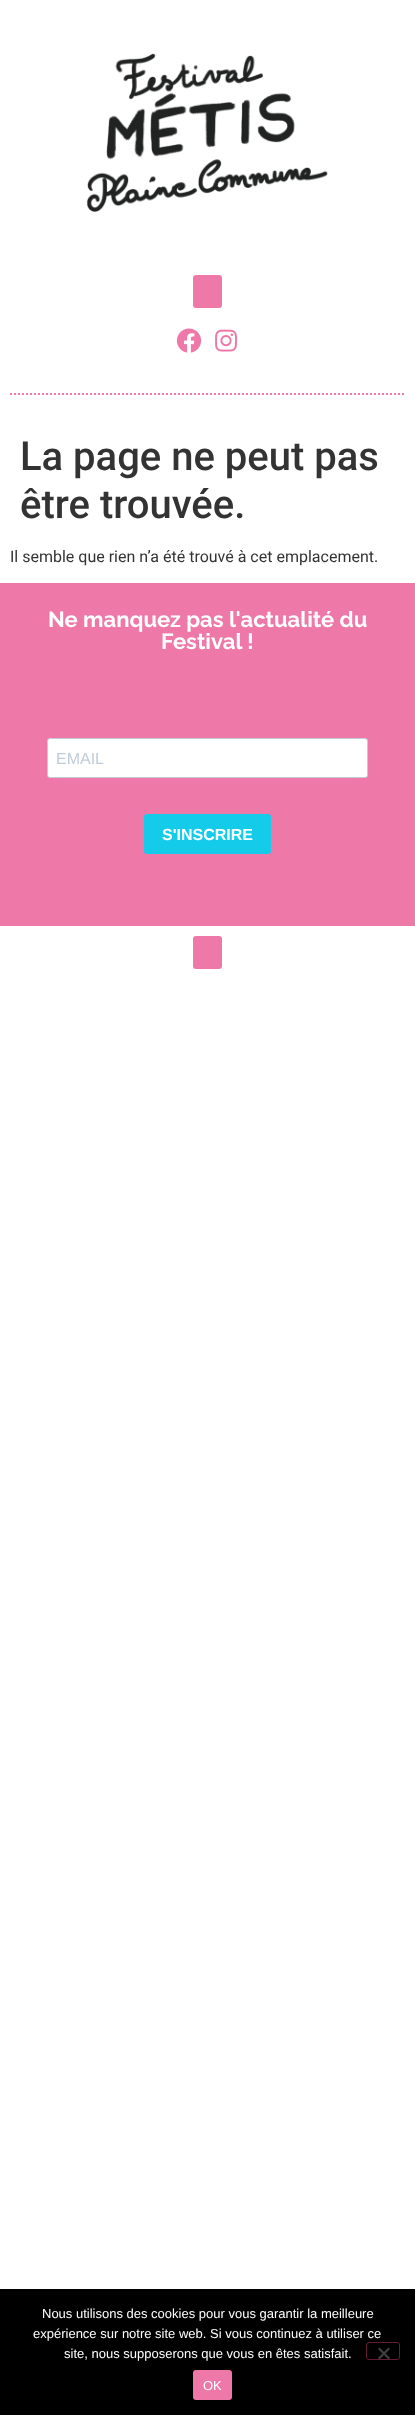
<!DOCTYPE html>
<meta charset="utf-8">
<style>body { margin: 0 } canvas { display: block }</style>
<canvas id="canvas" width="415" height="2415"></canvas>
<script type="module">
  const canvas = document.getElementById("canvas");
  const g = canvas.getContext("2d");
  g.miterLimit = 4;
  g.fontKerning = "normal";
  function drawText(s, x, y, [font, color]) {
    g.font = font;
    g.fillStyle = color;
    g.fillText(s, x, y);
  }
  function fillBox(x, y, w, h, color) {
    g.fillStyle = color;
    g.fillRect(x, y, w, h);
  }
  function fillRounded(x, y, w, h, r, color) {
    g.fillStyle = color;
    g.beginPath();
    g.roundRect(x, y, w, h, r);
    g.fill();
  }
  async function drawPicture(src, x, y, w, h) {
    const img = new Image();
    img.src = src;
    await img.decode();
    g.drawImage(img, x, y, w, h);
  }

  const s1 = ["500 40px Roboto", "#333333"];
  const s2 = ["16px Roboto", "#333333"];
  const s3 = ["bold 22px Raleway", "#FFFFFF"];
  const s4 = ["16px Liberation Sans", "#C0CCDA"];
  const s5 = ["bold 16px Liberation Sans", "#FFFFFF"];
  const s6 = ["13px Liberation Sans", "#FFFFFF"];

  fillBox(0, 0, 415, 2415, "#FFFFFF");
  await drawPicture("pic1.png", 86, 53, 242, 159);
  fillRounded(193, 275, 29, 33, 3, "#EE78A7");
  await drawPicture("pic2.png", 176, 328, 26, 25);
  await drawPicture("pic3.png", 215, 329, 22, 23);
  g.beginPath();
  g.moveTo(10, 394);
  g.lineTo(405, 394);
  g.strokeStyle = "#EE78A7";
  g.lineWidth = 2;
  g.setLineDash([2, 2]);
  g.stroke();
  drawText("La page ne peut pas", 20, 470, s1);
  drawText("être trouvée.", 20, 518, s1);
  drawText("Il semble que rien n’a été trouvé à cet emplacement.", 10, 562, s2);
  fillBox(0, 583, 415, 343, "#EE78A7");
  drawText("Ne manquez pas l'actualité du", 48, 627, s3);
  drawText("Festival !", 161, 649, s3);
  g.beginPath();
  g.roundRect(47.5, 738.5, 320, 39, 2.5);
  g.fill();
  g.strokeStyle = "#C0CCDA";
  g.lineWidth = 1;
  g.setLineDash([]);
  g.stroke();
  drawText("EMAIL", 56, 764, s4);
  fillRounded(144, 814, 127, 40, 3, "#15CBEA");
  drawText("S'INSCRIRE", 162, 840, s5);
  fillRounded(193, 936, 29, 33, 3, "#EE78A7");
  fillBox(0, 2289, 415, 126, "#000000");
  drawText("Nous utilisons des cookies pour vous garantir la meilleure", 42, 2318, s6);
  drawText("expérience sur notre site web. Si vous continuez à utiliser ce", 33, 2338, s6);
  drawText("site, nous supposerons que vous en êtes satisfait.", 64, 2358, s6);
  g.beginPath();
  g.roundRect(366.5, 2342.5, 33, 17, 2.5);
  g.strokeStyle = "#661A33";
  g.stroke();
  g.fillStyle = "#404040";
  g.beginPath();
  g.moveTo(388.5, 2347.5);
  g.lineTo(390, 2349);
  g.lineTo(379.5, 2359.5);
  g.lineTo(378, 2358);
  g.closePath();
  g.fill();
  g.beginPath();
  g.moveTo(378, 2349);
  g.lineTo(379.5, 2347.5);
  g.lineTo(390, 2358);
  g.lineTo(388.5, 2359.5);
  g.closePath();
  g.fill();
  fillRounded(193, 2370, 39, 30, 3, "#EE78A7");
  drawText("OK", 203, 2390, s6);
</script>
